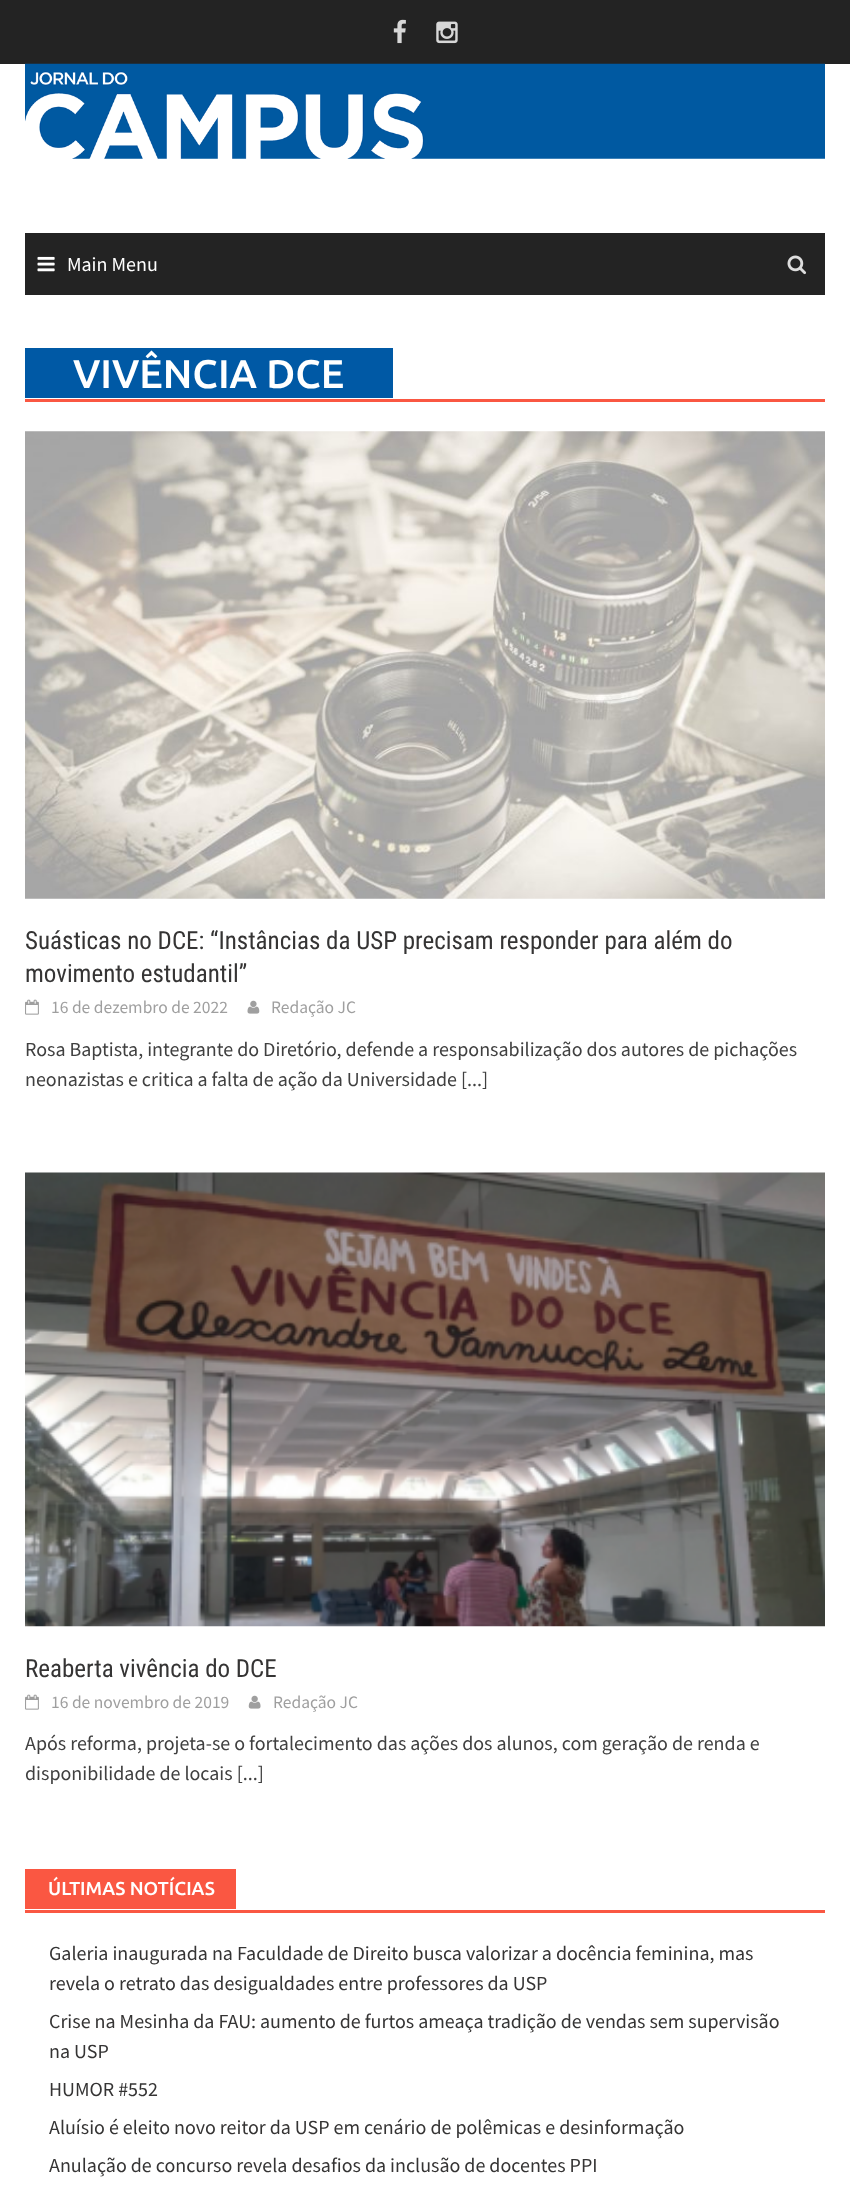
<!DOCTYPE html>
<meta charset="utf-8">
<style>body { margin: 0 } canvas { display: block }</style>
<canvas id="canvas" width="850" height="2186"></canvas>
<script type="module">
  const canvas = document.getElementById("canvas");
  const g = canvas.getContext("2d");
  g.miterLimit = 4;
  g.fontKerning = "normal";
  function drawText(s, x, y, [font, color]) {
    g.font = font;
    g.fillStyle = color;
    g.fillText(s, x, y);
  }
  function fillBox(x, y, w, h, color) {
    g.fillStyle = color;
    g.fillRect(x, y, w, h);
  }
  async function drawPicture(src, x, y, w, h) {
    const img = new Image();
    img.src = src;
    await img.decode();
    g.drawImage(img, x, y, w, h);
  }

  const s1 = ["20px Source Sans Pro", "#FFFFFF"];
  const s2 = ["500 40px Ubuntu", "#FFFFFF"];
  const s3 = ["25px Roboto Condensed", "#353434"];
  const s4 = ["17.5px Source Sans Pro", "#9F9F9F"];
  const s5 = ["20px Source Sans Pro", "#404040"];
  const s6 = ["500 18.75px Ubuntu", "#FFFFFF"];
  const s7 = ["20px Source Sans Pro", "#353434"];

  fillBox(0, 0, 850, 2186, "#FFFFFF");
  fillBox(0, 0, 850, 64, "#232323");
  await drawPicture("pic1.png", 393, 19, 13, 25);
  await drawPicture("pic2.png", 436, 21, 22, 23);
  await drawPicture("pic3.png", 25, 63, 800, 96);
  fillBox(25, 233, 800, 62, "#232323");
  await drawPicture("pic4.png", 37, 256, 18, 16);
  drawText("Main Menu", 67, 271, s1);
  await drawPicture("pic5.png", 787, 255, 20, 20);
  fillBox(25, 399, 800, 3, "#FA5742");
  fillBox(25, 348, 368, 50, "#0059A5");
  drawText("VIVÊNCIA DCE", 73, 388, s2);
  await drawPicture("pic6.png", 25, 431, 800, 468);
  drawText("Suásticas no DCE: “Instâncias da USP precisam responder para além do", 25, 949, s3);
  drawText("movimento estudantil”", 25, 982, s3);
  await drawPicture("pic7.png", 25, 999, 14, 16);
  drawText("16 de dezembro de 2022", 51, 1013, s4);
  await drawPicture("pic8.png", 247, 1000, 13, 14);
  drawText("Redação JC", 271, 1013, s4);
  drawText("Rosa Baptista, integrante do Diretório, defende a responsabilização dos autores de pichações", 25, 1056, s5);
  drawText("neonazistas e critica a falta de ação da Universidade [...]", 25, 1086, s5);
  await drawPicture("pic9.png", 25, 1172, 800, 455);
  drawText("Reaberta vivência do DCE", 25, 1677, s3);
  await drawPicture("pic7.png", 25, 1694, 14, 16);
  drawText("16 de novembro de 2019", 51, 1708, s4);
  await drawPicture("pic10.png", 248, 1695, 13, 14);
  drawText("Redação JC", 273, 1708, s4);
  drawText("Após reforma, projeta-se o fortalecimento das ações dos alunos, com geração de renda e", 25, 1750, s5);
  drawText("disponibilidade de locais [...]", 25, 1780, s5);
  fillBox(25, 1910, 800, 3, "#FA5742");
  fillBox(25, 1869, 211, 40, "#FA5742");
  drawText("ÚLTIMAS NOTÍCIAS", 48, 1895, s6);
  drawText("Galeria inaugurada na Faculdade de Direito busca valorizar a docência feminina, mas", 49, 1960, s7);
  drawText("revela o retrato das desigualdades entre professores da USP", 49, 1990, s7);
  drawText("Crise na Mesinha da FAU: aumento de furtos ameaça tradição de vendas sem supervisão", 49, 2028, s7);
  drawText("na USP", 49, 2058, s7);
  drawText("HUMOR #552", 49, 2096, s7);
  drawText("Aluísio é eleito novo reitor da USP em cenário de polêmicas e desinformação", 49, 2134, s7);
  drawText("Anulação de concurso revela desafios da inclusão de docentes PPI", 49, 2172, s7);
</script>
